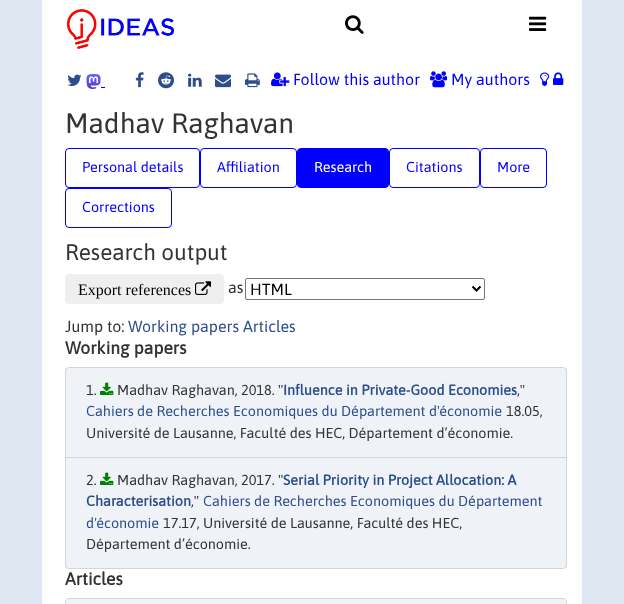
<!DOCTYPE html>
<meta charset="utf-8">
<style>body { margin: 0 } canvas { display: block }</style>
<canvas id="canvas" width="624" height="604"></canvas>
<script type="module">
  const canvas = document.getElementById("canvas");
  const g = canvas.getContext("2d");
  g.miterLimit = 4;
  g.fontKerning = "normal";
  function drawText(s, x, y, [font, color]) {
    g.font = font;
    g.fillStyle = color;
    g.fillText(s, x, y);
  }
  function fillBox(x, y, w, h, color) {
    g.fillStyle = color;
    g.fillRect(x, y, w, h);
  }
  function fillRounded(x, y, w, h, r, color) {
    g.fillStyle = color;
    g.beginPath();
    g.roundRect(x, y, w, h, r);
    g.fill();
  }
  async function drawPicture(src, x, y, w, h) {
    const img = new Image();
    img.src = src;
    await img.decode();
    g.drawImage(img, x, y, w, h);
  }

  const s1 = ["16px Asap", "#0000FC"];
  const s2 = ["28px Asap", "#333333"];
  const s3 = ["14.4px Asap", "#0000FC"];
  const s4 = ["14.4px Asap", "#FFFFFF"];
  const s5 = ["22.5px Asap", "#333333"];
  const s6 = ["16px Liberation Serif", "#000000"];
  const s7 = ["16px Asap", "#333333"];
  const s8 = ["16px Asap", "#000000"];
  const s9 = ["16px Asap", "#2D4E8B"];
  const s10 = ["bold 17.5px Asap", "#333333"];
  const s11 = ["14.4px Asap", "#333333"];
  const s12 = ["bold 14.4px Asap", "#2D4E8B"];
  const s13 = ["14.4px Asap", "#2D4E8B"];

  fillBox(0, 0, 624, 604, "#DFE7F2");
  fillBox(42, 0, 540, 604, "#FFFFFF");
  await drawPicture("pic1.png", 66, 9, 109, 40);
  await drawPicture("pic2.png", 345, 15, 19, 19);
  await drawPicture("pic3.png", 529, 16, 18, 15);
  await drawPicture("pic4.png", 67, 74, 15, 12);
  await drawPicture("pic5.png", 86, 74, 15, 15);
  fillBox(101, 87, 4, 1, "#0000FF");
  await drawPicture("pic6.png", 135, 72, 9, 16);
  await drawPicture("pic7.png", 158, 72, 16, 17);
  await drawPicture("pic8.png", 188, 73, 14, 14);
  await drawPicture("pic9.png", 215, 74, 16, 14);
  await drawPicture("pic10.png", 245, 73, 15, 15);
  await drawPicture("pic11.png", 271, 72, 19, 15);
  drawText("Follow this author", 293, 85, s1);
  await drawPicture("pic12.png", 430, 71, 18, 17);
  drawText("My authors", 451, 85, s1);
  await drawPicture("pic13.png", 540, 72, 10, 15);
  await drawPicture("pic14.png", 553, 72, 11, 13);
  drawText("Madhav Raghavan", 65, 133, s2);
  g.beginPath();
  g.roundRect(65.5, 148.5, 134, 39, 3.5);
  g.strokeStyle = "#0000FC";
  g.stroke();
  drawText("Personal details", 82, 172, s3);
  g.beginPath();
  g.roundRect(200.5, 148.5, 96, 39, 3.5);
  g.stroke();
  drawText("Affiliation", 217, 172, s3);
  g.beginPath();
  g.roundRect(297.5, 148.5, 91, 39, 3.5);
  g.fill();
  g.stroke();
  drawText("Research", 314, 172, s4);
  g.beginPath();
  g.roundRect(389.5, 148.5, 90, 39, 3.5);
  g.stroke();
  drawText("Citations", 406, 172, s3);
  g.beginPath();
  g.roundRect(480.5, 148.5, 66, 39, 3.5);
  g.stroke();
  drawText("More", 497, 172, s3);
  g.beginPath();
  g.roundRect(65.5, 188.5, 106, 39, 3.5);
  g.stroke();
  drawText("Corrections", 82, 212, s3);
  drawText("Research output", 65, 260, s5);
  fillRounded(65, 274, 159, 30, 4, "#EFEFEF");
  drawText("Export references", 78, 295, s6);
  await drawPicture("pic15.png", 195, 281, 16, 14);
  drawText("as", 228, 293, s7);
  g.beginPath();
  g.roundRect(245.5, 278.5, 239, 21, 1.5);
  g.strokeStyle = "#767676";
  g.stroke();
  g.beginPath();
  g.moveTo(472.5, 286.5);
  g.lineTo(476.5, 290.5);
  g.lineTo(480.5, 286.5);
  g.strokeStyle = "#000000";
  g.lineWidth = 2;
  g.stroke();
  drawText("HTML", 250, 295, s8);
  drawText("Jump to:", 65, 332, s7);
  drawText("Working papers Articles", 128, 332, s9);
  drawText("Working papers", 65, 354, s10);
  g.fillStyle = "#EFF3F8";
  g.beginPath();
  g.roundRect(65, 367, 502, 91, [4, 4, 0, 0]);
  g.fill();
  g.beginPath();
  g.roundRect(65.5, 367.5, 501, 90, [3.5, 3.5, 0, 0]);
  g.strokeStyle = "rgba(0, 0, 0, 0.12)";
  g.lineWidth = 1;
  g.stroke();
  drawText("1.", 86, 395, s11);
  await drawPicture("pic16.png", 100, 382, 14, 13);
  drawText("Madhav Raghavan, 2018. \"", 117, 395, s11);
  drawText("Influence in Private-Good Economies", 283, 395, s12);
  drawText(",\"", 517, 395, s11);
  drawText("Cahiers de Recherches Economiques du Département d'économie", 86, 416, s13);
  drawText("18.05,", 506, 416, s11);
  drawText("Université de Lausanne, Faculté des HEC, Département d’économie.", 86, 438, s11);
  g.fillStyle = "#EFF3F8";
  g.beginPath();
  g.roundRect(65, 457, 502, 112, [0, 0, 4, 4]);
  g.fill();
  g.beginPath();
  g.roundRect(65.5, 457.5, 501, 111, [0, 0, 3.5, 3.5]);
  g.stroke();
  drawText("2.", 86, 485, s11);
  await drawPicture("pic16.png", 100, 472, 14, 13);
  drawText("Madhav Raghavan, 2017. \"", 117, 485, s11);
  drawText("Serial Priority in Project Allocation: A", 283, 485, s12);
  drawText("Characterisation", 86, 506, s12);
  drawText(",\"", 191, 506, s11);
  drawText("Cahiers de Recherches Economiques du Département", 203, 506, s13);
  drawText("d'économie", 86, 528, s13);
  drawText("17.17, Université de Lausanne, Faculté des HEC,", 163, 528, s11);
  drawText("Département d’économie.", 86, 549, s11);
  drawText("Articles", 65, 585, s10);
  g.fillStyle = "#EFF3F8";
  g.beginPath();
  g.moveTo(69, 598);
  g.lineTo(563, 598);
  g.bezierCurveTo(565, 598, 567, 600, 567, 602);
  g.lineTo(567, 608);
  g.lineTo(65, 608);
  g.lineTo(65, 602);
  g.bezierCurveTo(65, 600, 67, 598, 69, 598);
  g.closePath();
  g.fill();
  g.beginPath();
  g.moveTo(69, 598.5);
  g.lineTo(563, 598.5);
  g.bezierCurveTo(565, 598.5, 566.5, 600, 566.5, 602);
  g.lineTo(566.5, 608.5);
  g.lineTo(65.5, 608.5);
  g.lineTo(65.5, 602);
  g.bezierCurveTo(65.5, 600, 67, 598.5, 69, 598.5);
  g.closePath();
  g.stroke();
</script>
